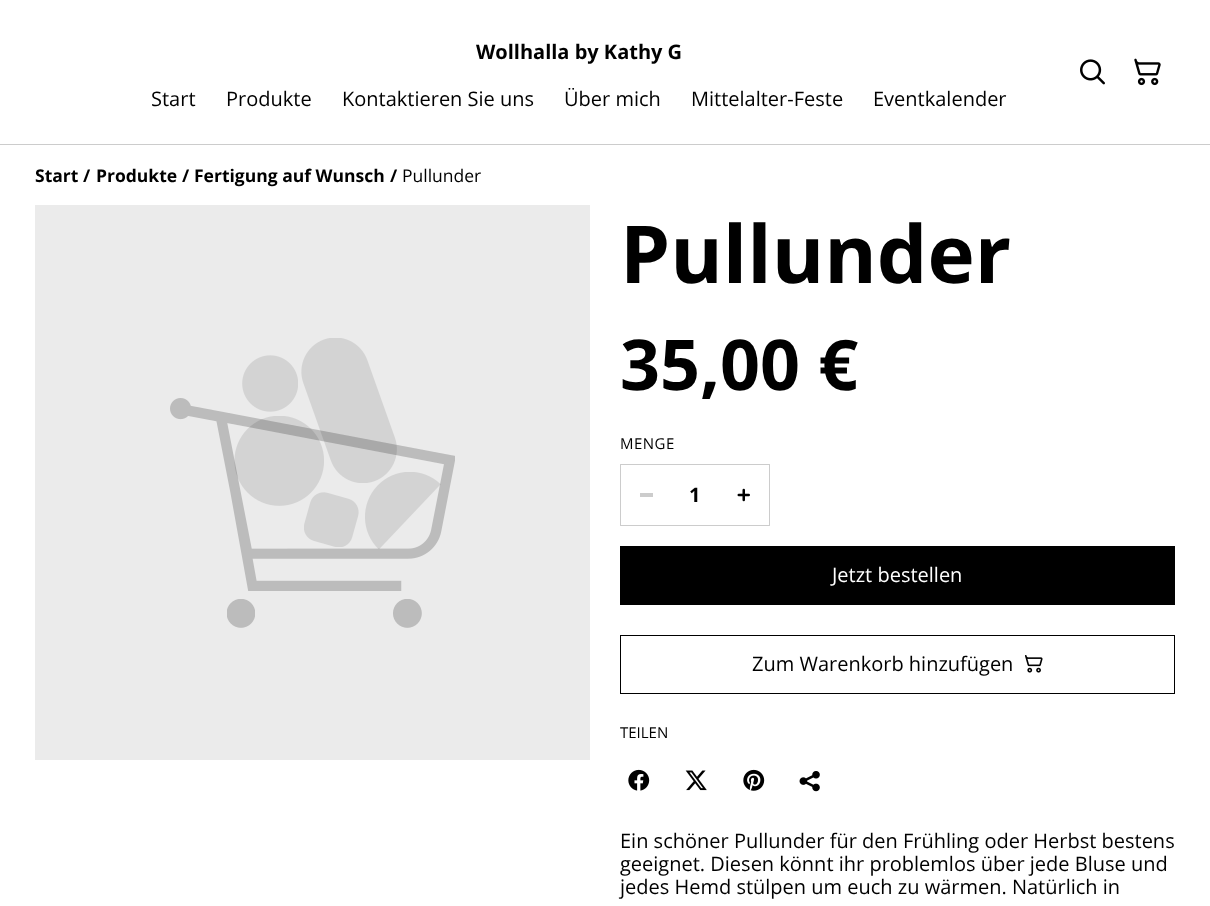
<!DOCTYPE html>
<meta charset="utf-8">
<style>body { margin: 0 } canvas { display: block }</style>
<canvas id="canvas" width="1210" height="906"></canvas>
<script type="module">
  const canvas = document.getElementById("canvas");
  const g = canvas.getContext("2d");
  g.miterLimit = 4;
  g.fontKerning = "normal";
  function drawText(s, x, y, [font, color]) {
    g.font = font;
    g.fillStyle = color;
    g.fillText(s, x, y);
  }
  function fillBox(x, y, w, h, color) {
    g.fillStyle = color;
    g.fillRect(x, y, w, h);
  }
  async function drawPicture(src, x, y, w, h) {
    const img = new Image();
    img.src = src;
    await img.decode();
    g.drawImage(img, x, y, w, h);
  }

  const s1 = ["bold 20px Open Sans", "#000000"];
  const s2 = ["20px Open Sans", "#000000"];
  const s3 = ["bold 17.5px Open Sans", "#000000"];
  const s4 = ["17.5px Open Sans", "#000000"];
  const s5 = ["bold 80px Open Sans", "#000000"];
  const s6 = ["bold 70px Open Sans", "#000000"];
  const s7 = ["15px Open Sans", "#000000"];
  const s8 = ["20px Open Sans", "#FFFFFF"];

  fillBox(0, 0, 1210, 906, "#FFFFFF");
  fillBox(0, 144, 1210, 1, "#CCCCCC");
  drawText("Wollhalla by Kathy G", 476, 59, s1);
  drawText("Start", 151, 106, s2);
  drawText("Produkte", 226, 106, s2);
  drawText("Kontaktieren Sie uns", 342, 106, s2);
  drawText("Über mich", 564, 106, s2);
  drawText("Mittelalter-Feste", 691, 106, s2);
  drawText("Eventkalender", 873, 106, s2);
  await drawPicture("pic1.png", 1080, 59, 25, 26);
  await drawPicture("pic2.png", 1134, 58, 27, 28);
  drawText("Start", 35, 182, s3);
  drawText("/", 83, 182, s3);
  drawText("Produkte", 96, 182, s3);
  drawText("/", 182, 182, s3);
  drawText("Fertigung auf Wunsch", 194, 182, s3);
  drawText("/", 390, 182, s3);
  drawText("Pullunder", 402, 182, s4);
  await drawPicture("pic3.png", 35, 205, 555, 555);
  drawText("Pullunder", 620, 283, s5);
  drawText("35,00 €", 620, 390, s6);
  g.letterSpacing = "0.5px";
  drawText("MENGE", 620, 449, s7);
  g.fillStyle = "#CCCCCC";
  g.beginPath();
  g.moveTo(620, 464);
  g.lineTo(671, 464);
  g.lineTo(671, 465);
  g.lineTo(621, 465);
  g.closePath();
  g.moveTo(671, 526);
  g.lineTo(620, 526);
  g.lineTo(621, 525);
  g.lineTo(671, 525);
  g.closePath();
  g.fill();
  g.fillStyle = "rgba(0, 0, 0, 0.2)";
  g.beginPath();
  g.moveTo(620, 526);
  g.lineTo(620, 464);
  g.lineTo(621, 465);
  g.lineTo(621, 525);
  g.closePath();
  g.fill();
  fillBox(640, 493, 13, 4, "#CCCCCC");
  fillBox(671, 464, 48, 1, "#CCCCCC");
  fillBox(671, 525, 48, 1, "#CCCCCC");
  g.letterSpacing = "0px";
  drawText("1", 689, 502, s1);
  g.fillStyle = "#CCCCCC";
  g.beginPath();
  g.moveTo(719, 464);
  g.lineTo(770, 464);
  g.lineTo(769, 465);
  g.lineTo(719, 465);
  g.closePath();
  g.fill();
  g.fillStyle = "rgba(0, 0, 0, 0.2)";
  g.beginPath();
  g.moveTo(770, 464);
  g.lineTo(770, 526);
  g.lineTo(769, 525);
  g.lineTo(769, 465);
  g.closePath();
  g.fill();
  g.beginPath();
  g.moveTo(770, 526);
  g.lineTo(719, 526);
  g.lineTo(719, 525);
  g.lineTo(769, 525);
  g.closePath();
  g.fill();
  await drawPicture("pic4.png", 737, 488, 13, 14);
  fillBox(620, 546, 555, 59, "#000000");
  drawText("Jetzt bestellen", 832, 582, s8);
  g.strokeStyle = "#000000";
  g.strokeRect(620.5, 635.5, 554, 58);
  drawText("Zum Warenkorb hinzufügen", 752, 671, s2);
  await drawPicture("pic5.png", 1025, 655, 18, 18);
  drawText("TEILEN", 620, 738, s7);
  await drawPicture("pic6.png", 628, 769, 22, 22);
  await drawPicture("pic7.png", 685, 770, 22, 21);
  await drawPicture("pic8.png", 743, 769, 22, 22);
  await drawPicture("pic9.png", 799, 771, 21, 21);
  drawText("Ein schöner Pullunder für den Frühling oder Herbst bestens", 620, 848, s2);
  drawText("geeignet. Diesen könnt ihr problemlos über jede Bluse und", 620, 871, s2);
  drawText("jedes Hemd stülpen um euch zu wärmen. Natürlich in", 620, 894, s2);
</script>
